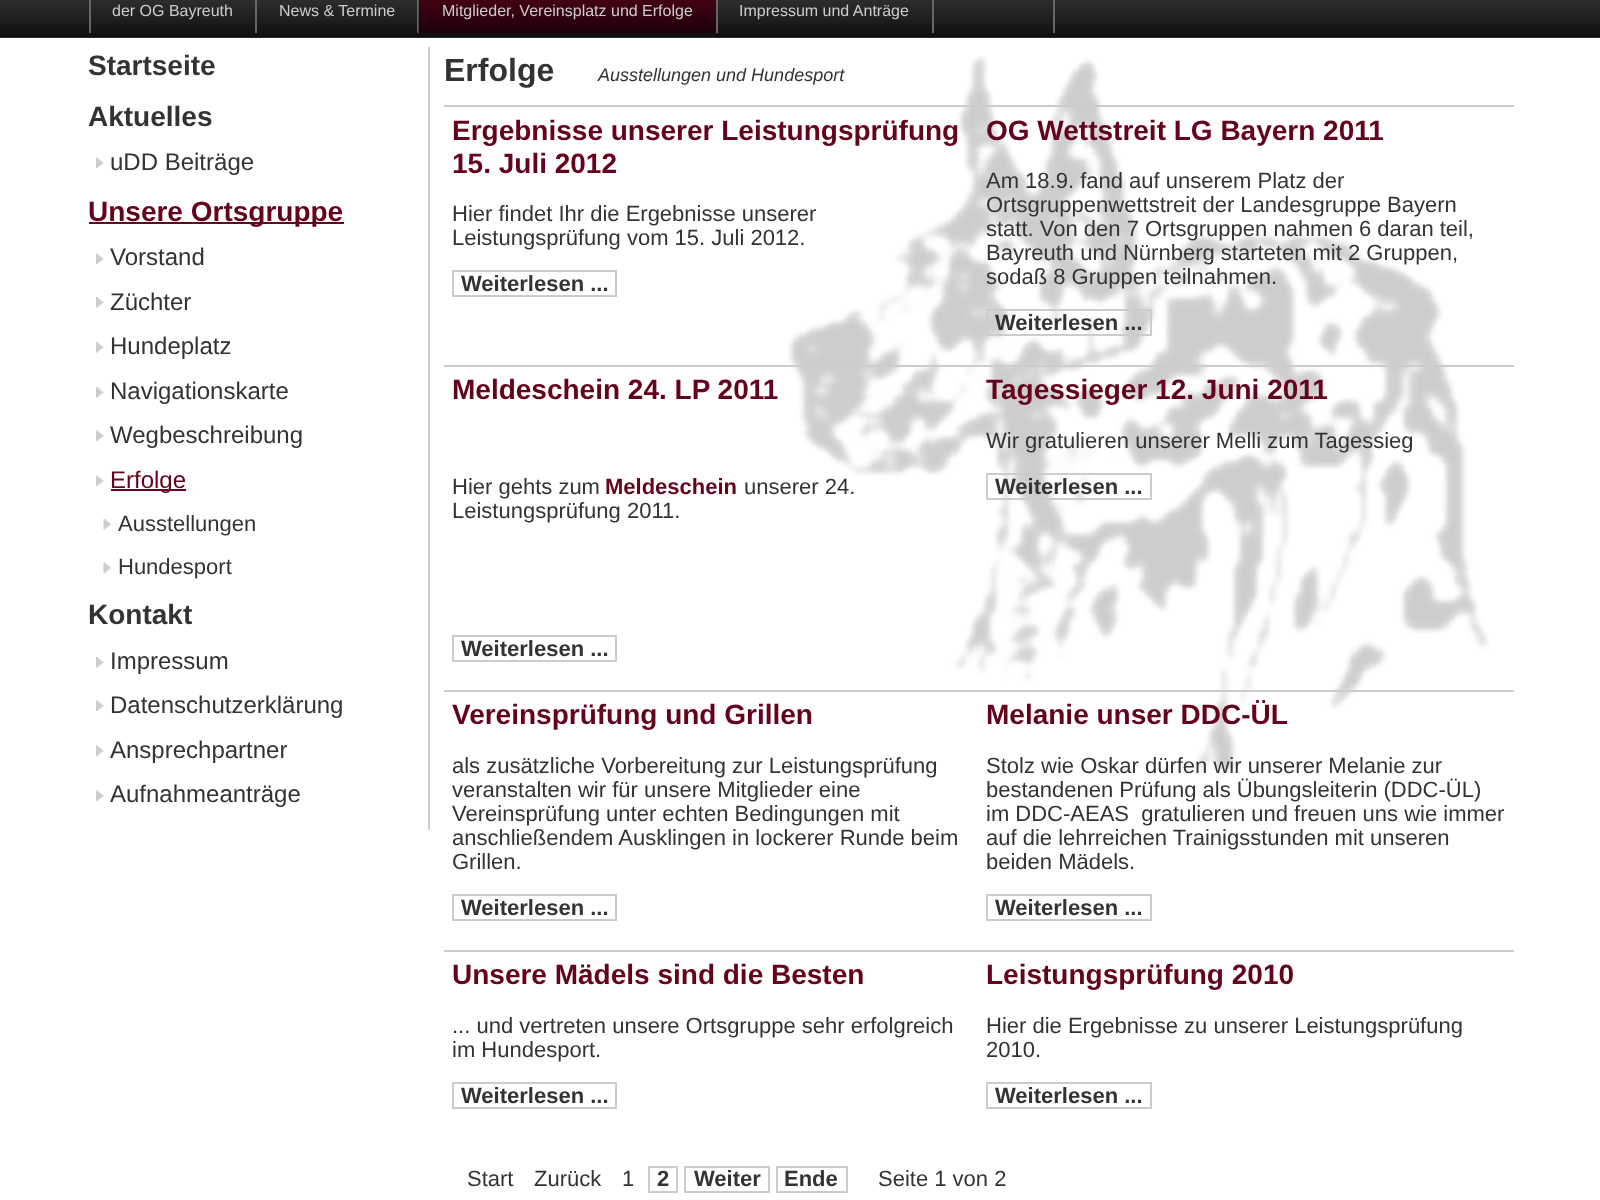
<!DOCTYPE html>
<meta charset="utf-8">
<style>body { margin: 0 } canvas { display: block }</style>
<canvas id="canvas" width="1600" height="1200"></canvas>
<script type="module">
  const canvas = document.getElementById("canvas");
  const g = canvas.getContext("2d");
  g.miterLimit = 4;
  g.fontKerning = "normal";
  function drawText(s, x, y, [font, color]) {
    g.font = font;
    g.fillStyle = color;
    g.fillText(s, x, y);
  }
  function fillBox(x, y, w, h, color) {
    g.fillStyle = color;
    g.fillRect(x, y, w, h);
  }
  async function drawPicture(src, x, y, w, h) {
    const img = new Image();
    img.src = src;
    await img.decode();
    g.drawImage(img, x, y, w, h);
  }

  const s1 = ["16px Liberation Sans", "#CCCCCC"];
  const s2 = ["bold 28px Liberation Sans", "#333333"];
  const s3 = ["24px Liberation Sans", "#333333"];
  const s4 = ["bold 28px Liberation Sans", "#65021E"];
  const s5 = ["24px Liberation Sans", "#65021E"];
  const s6 = ["22px Liberation Sans", "#333333"];
  const s7 = ["bold 32px Liberation Sans", "#333333"];
  const s8 = ["italic 18px Liberation Sans", "#333333"];
  const s9 = ["bold 22px Liberation Sans", "#333333"];
  const s10 = ["bold 22px Liberation Sans", "#65021E"];

  fillBox(0, 0, 1600, 1200, "#FFFFFF");
  fillBox(0, 0, 1600, 38, "#444444");
  await drawPicture("pic1.png", 0, 0, 1600, 38);
  fillBox(255, 0, 2, 33, "#666666");
  fillBox(89, 0, 2, 33, "#666666");
  drawText("der OG Bayreuth", 112, 16, s1);
  fillBox(417, 0, 2, 33, "#666666");
  drawText("News & Termine", 279, 16, s1);
  fillBox(419, 0, 297, 33, "#65021E");
  await drawPicture("pic2.png", 418, 0, 298, 33);
  fillBox(716, 0, 2, 33, "#666666");
  drawText("Mitglieder, Vereinsplatz und Erfolge", 442, 16, s1);
  fillBox(932, 0, 2, 33, "#666666");
  drawText("Impressum und Anträge", 739, 16, s1);
  fillBox(1053, 0, 2, 33, "#666666");
  fillBox(428, 47, 2, 783, "#CCCCCC");
  drawText("Startseite", 88, 75, s2);
  drawText("Aktuelles", 88, 126, s2);
  await drawPicture("pic3.png", 96, 157, 8, 11);
  drawText("uDD Beiträge", 110, 170, s3);
  fillBox(89, 222, 255, 2, "#65021E");
  drawText("Unsere Ortsgruppe", 88, 221, s4);
  await drawPicture("pic3.png", 96, 253, 8, 11);
  drawText("Vorstand", 110, 265, s3);
  await drawPicture("pic4.png", 96, 297, 8, 11);
  drawText("Züchter", 110, 310, s3);
  await drawPicture("pic4.png", 96, 342, 8, 11);
  drawText("Hundeplatz", 110, 354, s3);
  await drawPicture("pic4.png", 96, 387, 8, 11);
  drawText("Navigationskarte", 110, 399, s3);
  await drawPicture("pic3.png", 96, 430, 8, 11);
  drawText("Wegbeschreibung", 110, 443, s3);
  await drawPicture("pic3.png", 96, 475, 8, 11);
  fillBox(111, 489, 75, 2, "#65021E");
  drawText("Erfolge", 110, 488, s5);
  await drawPicture("pic5.png", 103, 519, 8, 11);
  drawText("Ausstellungen", 118, 531, s6);
  await drawPicture("pic6.png", 103, 562, 8, 11);
  drawText("Hundesport", 118, 574, s6);
  drawText("Kontakt", 88, 624, s2);
  await drawPicture("pic4.png", 96, 657, 8, 11);
  drawText("Impressum", 110, 669, s3);
  await drawPicture("pic3.png", 96, 700, 8, 11);
  drawText("Datenschutzerklärung", 110, 713, s3);
  await drawPicture("pic3.png", 96, 745, 8, 11);
  drawText("Ansprechpartner", 110, 758, s3);
  await drawPicture("pic3.png", 96, 790, 8, 11);
  drawText("Aufnahmeanträge", 110, 802, s3);
  await drawPicture("pic7.png", 788, 56, 701, 717);
  drawText("Erfolge", 444, 81, s7);
  drawText("Ausstellungen und Hundesport", 598, 81, s8);
  drawText("Ergebnisse unserer Leistungsprüfung", 452, 140, s4);
  drawText("15. Juli 2012", 452, 173, s4);
  drawText("Hier findet Ihr die Ergebnisse unserer", 452, 221, s6);
  drawText("Leistungsprüfung vom 15. Juli 2012.", 452, 245, s6);
  g.strokeStyle = "#CCCCCC";
  g.lineWidth = 2;
  g.strokeRect(453, 271, 163, 25);
  drawText("Weiterlesen ...", 461, 291, s9);
  fillBox(444, 105, 1070, 2, "#CCCCCC");
  drawText("OG Wettstreit LG Bayern 2011", 986, 140, s4);
  drawText("Am 18.9. fand auf unserem Platz der", 986, 188, s6);
  drawText("Ortsgruppenwettstreit der Landesgruppe Bayern", 986, 212, s6);
  drawText("statt. Von den 7 Ortsgruppen nahmen 6 daran teil,", 986, 236, s6);
  drawText("Bayreuth und Nürnberg starteten mit 2 Gruppen,", 986, 260, s6);
  drawText("sodaß 8 Gruppen teilnahmen.", 986, 284, s6);
  g.strokeRect(987, 310, 164, 25);
  drawText("Weiterlesen ...", 995, 330, s9);
  drawText("Meldeschein 24. LP 2011", 452, 399, s4);
  drawText("Hier gehts zum", 452, 494, s6);
  drawText("Meldeschein", 605, 494, s10);
  drawText("unserer 24.", 744, 494, s6);
  drawText("Leistungsprüfung 2011.", 452, 518, s6);
  g.strokeRect(453, 636, 163, 25);
  drawText("Weiterlesen ...", 461, 656, s9);
  fillBox(444, 365, 1070, 2, "#CCCCCC");
  drawText("Tagessieger 12. Juni 2011", 986, 399, s4);
  drawText("Wir gratulieren unserer Melli zum Tagessieg", 986, 448, s6);
  g.strokeRect(987, 474, 164, 25);
  drawText("Weiterlesen ...", 995, 494, s9);
  drawText("Vereinsprüfung und Grillen", 452, 724, s4);
  drawText("als zusätzliche Vorbereitung zur Leistungsprüfung", 452, 773, s6);
  drawText("veranstalten wir für unsere Mitglieder eine", 452, 797, s6);
  drawText("Vereinsprüfung unter echten Bedingungen mit", 452, 821, s6);
  drawText("anschließendem Ausklingen in lockerer Runde beim", 452, 845, s6);
  drawText("Grillen.", 452, 869, s6);
  g.strokeRect(453, 895, 163, 25);
  drawText("Weiterlesen ...", 461, 915, s9);
  fillBox(444, 690, 1070, 2, "#CCCCCC");
  drawText("Melanie unser DDC-ÜL", 986, 724, s4);
  drawText("Stolz wie Oskar dürfen wir unserer Melanie zur", 986, 773, s6);
  drawText("bestandenen Prüfung als Übungsleiterin (DDC-ÜL)", 986, 797, s6);
  drawText("im DDC-AEAS  gratulieren und freuen uns wie immer", 986, 821, s6);
  drawText("auf die lehrreichen Trainigsstunden mit unseren", 986, 845, s6);
  drawText("beiden Mädels.", 986, 869, s6);
  g.strokeRect(987, 895, 164, 25);
  drawText("Weiterlesen ...", 995, 915, s9);
  drawText("Unsere Mädels sind die Besten", 452, 984, s4);
  drawText("... und vertreten unsere Ortsgruppe sehr erfolgreich", 452, 1033, s6);
  drawText("im Hundesport.", 452, 1057, s6);
  g.strokeRect(453, 1083, 163, 25);
  drawText("Weiterlesen ...", 461, 1103, s9);
  fillBox(444, 950, 1070, 2, "#CCCCCC");
  drawText("Leistungsprüfung 2010", 986, 984, s4);
  drawText("Hier die Ergebnisse zu unserer Leistungsprüfung", 986, 1033, s6);
  drawText("2010.", 986, 1057, s6);
  g.strokeRect(987, 1083, 164, 25);
  drawText("Weiterlesen ...", 995, 1103, s9);
  drawText("Start", 467, 1186, s6);
  drawText("Zurück", 534, 1186, s6);
  drawText("1", 622, 1186, s6);
  g.strokeRect(649, 1167, 28, 25);
  drawText("2", 657, 1186, s9);
  g.strokeRect(685, 1167, 84, 25);
  drawText("Weiter", 694, 1186, s9);
  g.strokeRect(777, 1167, 70, 25);
  drawText("Ende", 784, 1186, s9);
  drawText("Seite 1 von 2", 878, 1186, s6);
</script>
